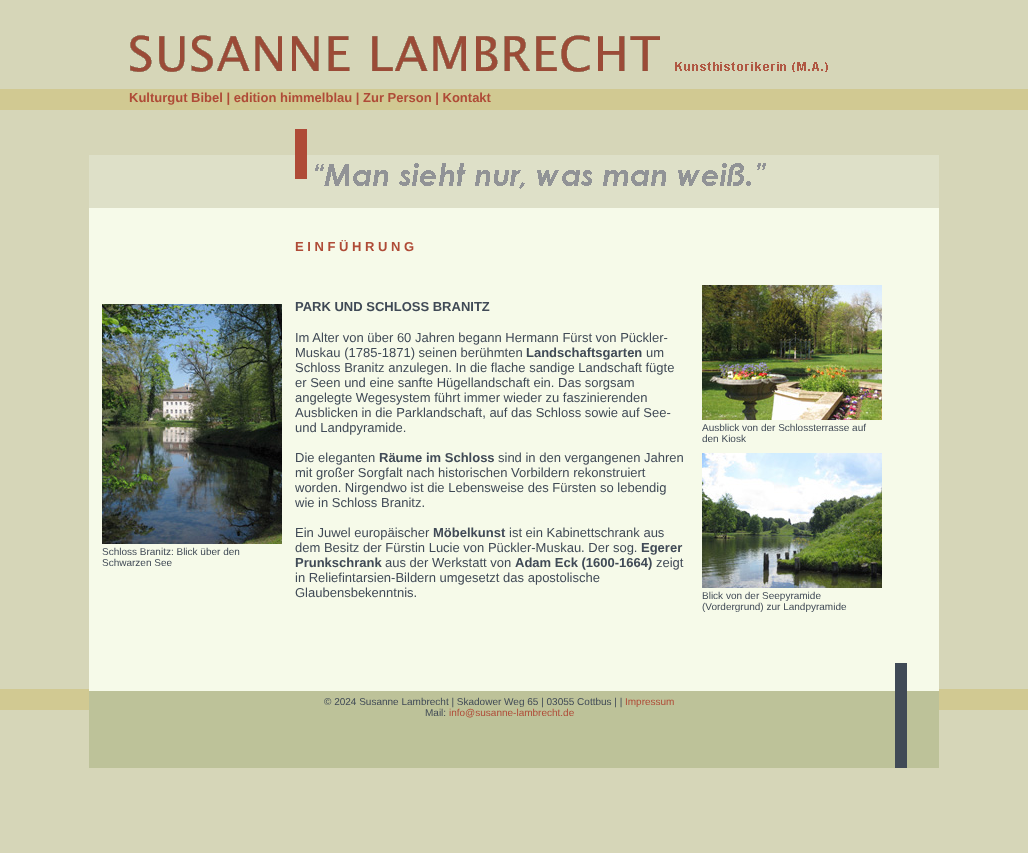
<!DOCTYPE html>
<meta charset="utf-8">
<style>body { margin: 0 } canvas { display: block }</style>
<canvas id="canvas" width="1028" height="853"></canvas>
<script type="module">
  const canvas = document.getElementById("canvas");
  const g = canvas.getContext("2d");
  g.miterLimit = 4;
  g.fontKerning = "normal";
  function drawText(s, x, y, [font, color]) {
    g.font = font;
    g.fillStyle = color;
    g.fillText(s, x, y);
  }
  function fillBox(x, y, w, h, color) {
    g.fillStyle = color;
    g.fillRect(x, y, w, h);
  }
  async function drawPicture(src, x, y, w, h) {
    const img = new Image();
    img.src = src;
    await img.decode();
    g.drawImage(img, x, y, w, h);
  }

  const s1 = ["bold 13px Liberation Sans", "#AF4B37"];
  const s2 = ["10px Liberation Sans", "#404A56"];
  const s3 = ["bold 13px Liberation Sans", "#404A56"];
  const s4 = ["13px Liberation Sans", "#404A56"];
  const s5 = ["10px Liberation Sans", "#AF4B37"];

  fillBox(0, 0, 1028, 853, "#D6D6B8");
  await drawPicture("pic1.png", 0, 89, 1028, 621);
  await drawPicture("pic2.png", 130, 35, 530, 37);
  await drawPicture("pic3.png", 675, 62, 153, 10);
  drawText("Kulturgut Bibel | edition himmelblau | Zur Person | Kontakt", 129, 102, s1);
  fillBox(295, 129, 12, 26, "#AF4B37");
  fillBox(89, 155, 850, 53, "#DEE0C8");
  fillBox(295, 155, 12, 24, "#AF4B37");
  await drawPicture("pic4.png", 315, 163, 451, 26);
  fillBox(89, 208, 850, 483, "#F6FAE9");
  await drawPicture("pic5.png", 102, 304, 180, 240);
  drawText("Schloss Branitz: Blick über den", 102, 555, s2);
  drawText("Schwarzen See", 102, 566, s2);
  drawText("E I N F Ü H R U N G", 295, 251, s1);
  drawText("PARK UND SCHLOSS BRANITZ", 295, 311, s3);
  drawText("Im Alter von über 60 Jahren begann Hermann Fürst von Pückler-", 295, 342, s4);
  drawText("Muskau (1785-1871) seinen berühmten", 295, 357, s4);
  drawText("Landschaftsgarten", 526, 357, s3);
  drawText("um", 646, 357, s4);
  drawText("Schloss Branitz anzulegen. In die flache sandige Landschaft fügte", 295, 372, s4);
  drawText("er Seen und eine sanfte Hügellandschaft ein. Das sorgsam", 295, 387, s4);
  drawText("angelegte Wegesystem führt immer wieder zu faszinierenden", 295, 402, s4);
  drawText("Ausblicken in die Parklandschaft, auf das Schloss sowie auf See-", 295, 417, s4);
  drawText("und Landpyramide.", 295, 432, s4);
  drawText("Die eleganten", 295, 462, s4);
  drawText("Räume im Schloss", 379, 462, s3);
  drawText("sind in den vergangenen Jahren", 498, 462, s4);
  drawText("mit großer Sorgfalt nach historischen Vorbildern rekonstruiert", 295, 477, s4);
  drawText("worden. Nirgendwo ist die Lebensweise des Fürsten so lebendig", 295, 492, s4);
  drawText("wie in Schloss Branitz.", 295, 507, s4);
  drawText("Ein Juwel europäischer", 295, 537, s4);
  drawText("Möbelkunst", 433, 537, s3);
  drawText("ist ein Kabinettschrank aus", 509, 537, s4);
  drawText("dem Besitz der Fürstin Lucie von Pückler-Muskau. Der sog.", 295, 552, s4);
  drawText("Egerer", 641, 552, s3);
  drawText("Prunkschrank", 295, 567, s3);
  drawText("aus der Werkstatt von", 385, 567, s4);
  drawText("Adam Eck (1600-1664)", 515, 567, s3);
  drawText("zeigt", 656, 567, s4);
  drawText("in Reliefintarsien-Bildern umgesetzt das apostolische", 295, 582, s4);
  drawText("Glaubensbekenntnis.", 295, 597, s4);
  await drawPicture("pic6.png", 702, 285, 180, 135);
  drawText("Ausblick von der Schlossterrasse auf", 702, 431, s2);
  drawText("den Kiosk", 702, 442, s2);
  await drawPicture("pic7.png", 702, 453, 180, 135);
  drawText("Blick von der Seepyramide", 702, 599, s2);
  drawText("(Vordergrund) zur Landpyramide", 702, 610, s2);
  fillBox(895, 663, 12, 28, "#404A56");
  fillBox(89, 691, 850, 77, "#BDC299");
  drawText("© 2024 Susanne Lambrecht | Skadower Weg 65 | 03055 Cottbus | |", 324, 705, s2);
  drawText("Impressum", 625, 705, s5);
  drawText("Mail:", 425, 716, s2);
  drawText("info@susanne-lambrecht.de", 449, 716, s5);
  fillBox(895, 691, 12, 77, "#404A56");
</script>
